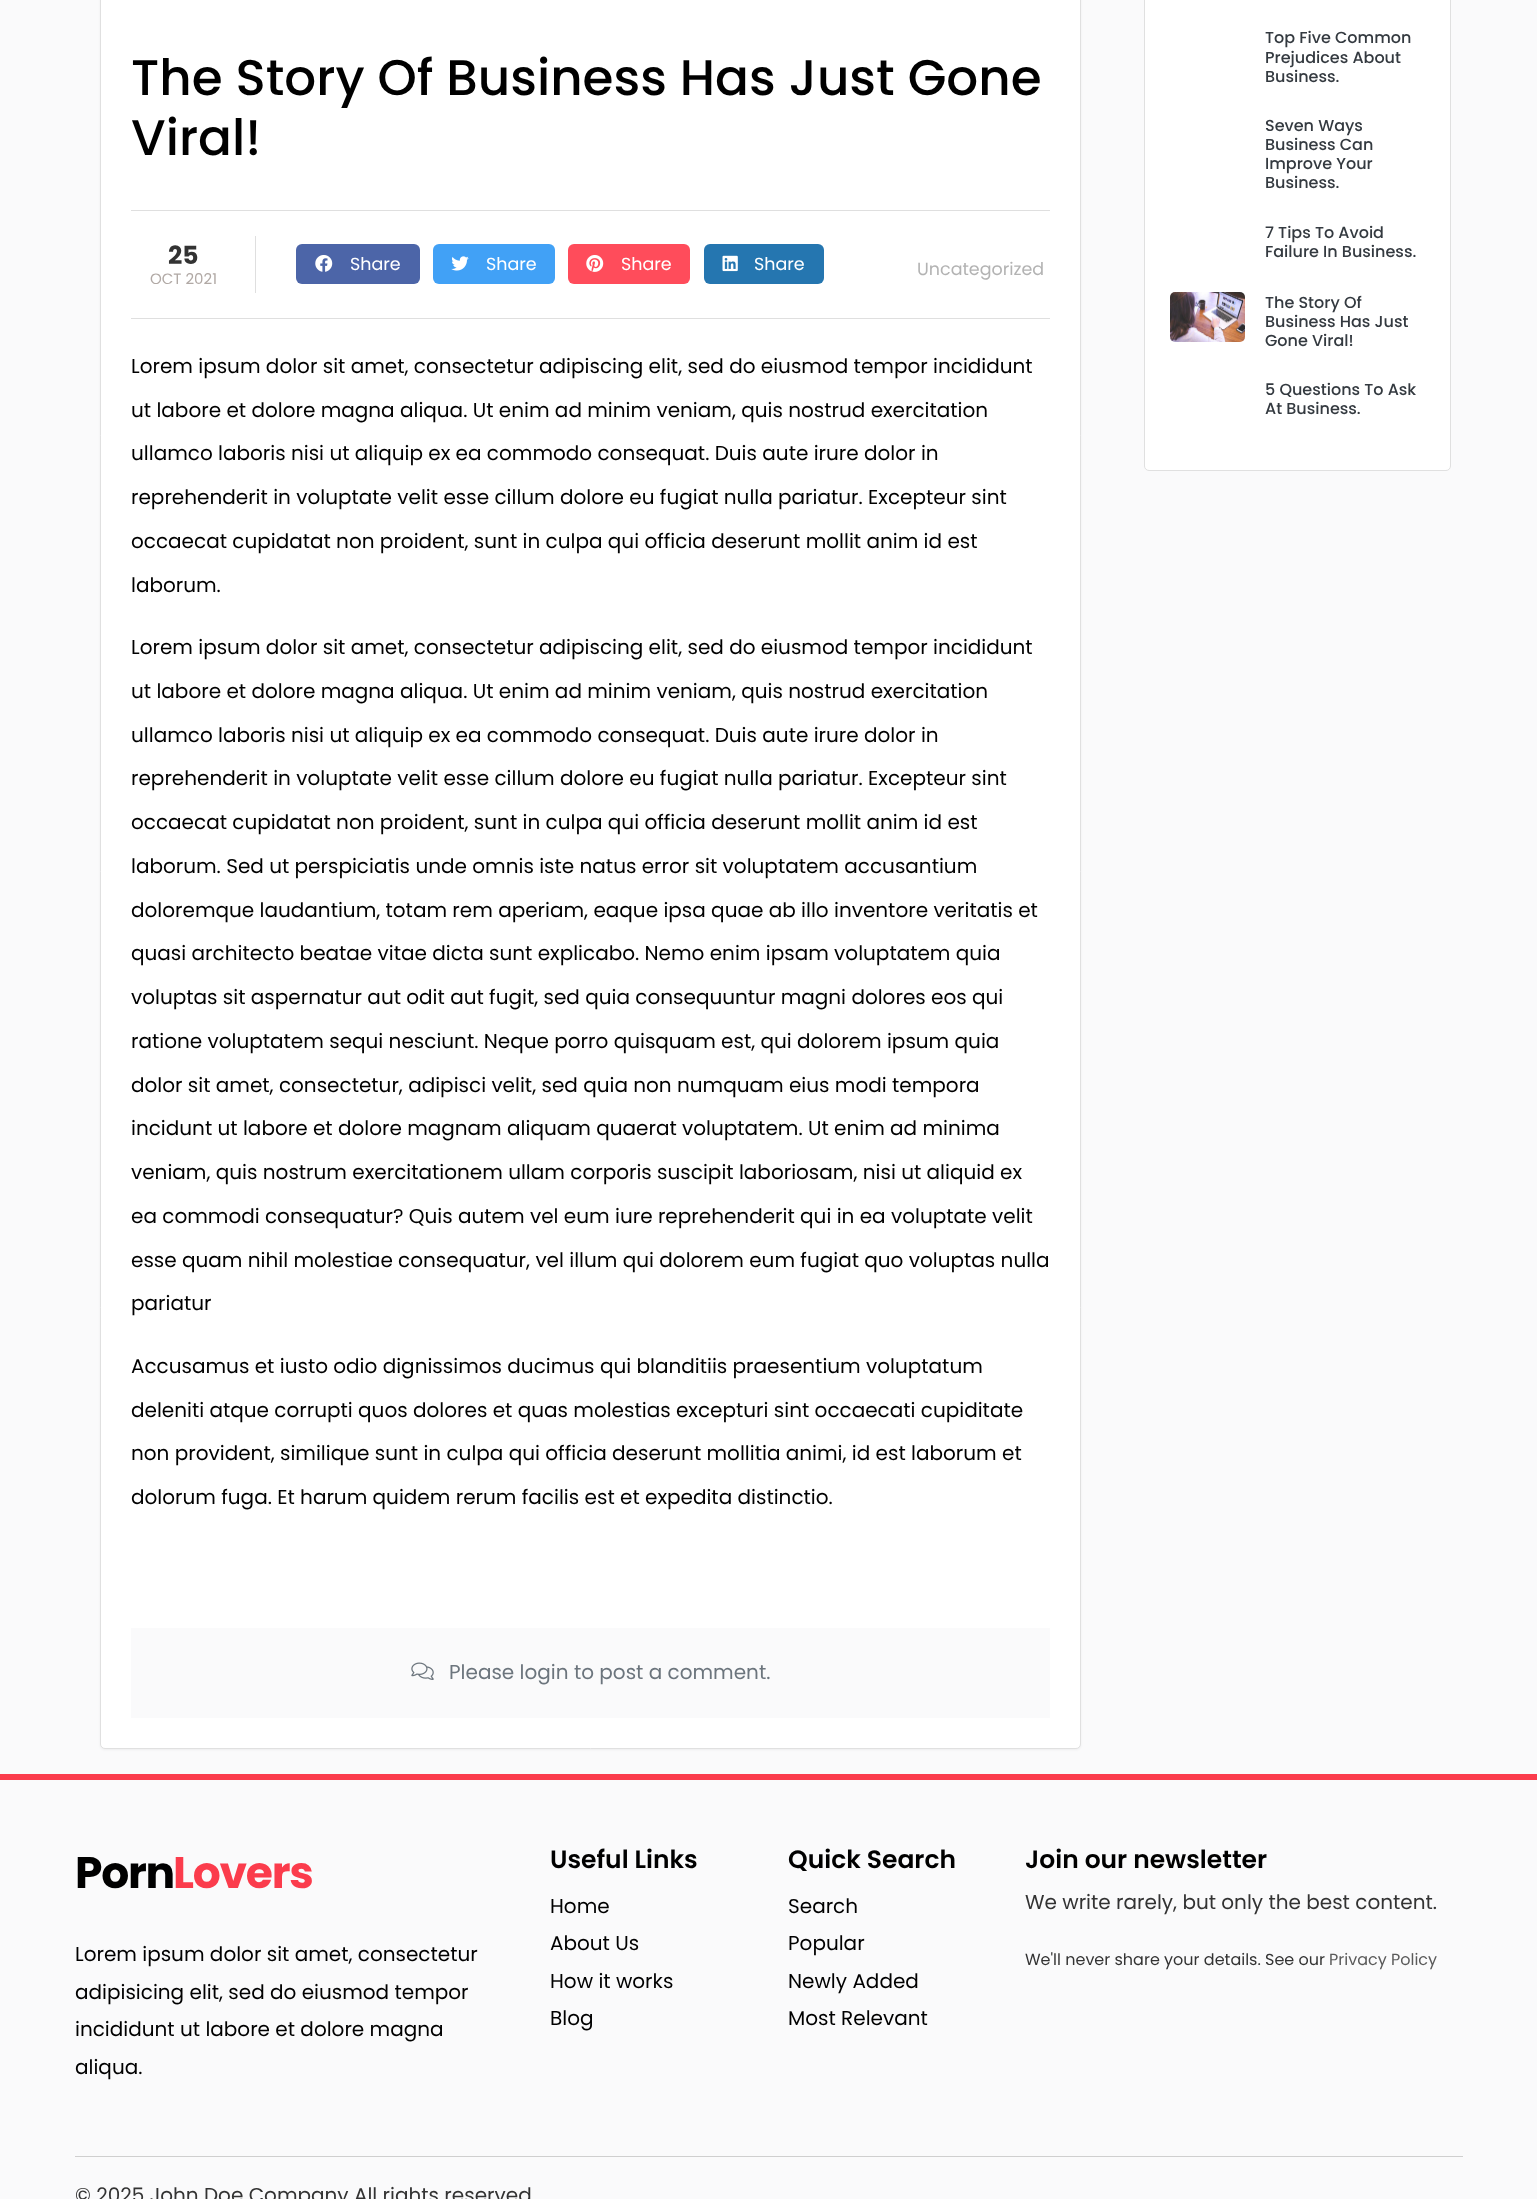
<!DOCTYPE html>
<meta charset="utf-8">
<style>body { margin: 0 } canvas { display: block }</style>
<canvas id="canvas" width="1537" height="2199"></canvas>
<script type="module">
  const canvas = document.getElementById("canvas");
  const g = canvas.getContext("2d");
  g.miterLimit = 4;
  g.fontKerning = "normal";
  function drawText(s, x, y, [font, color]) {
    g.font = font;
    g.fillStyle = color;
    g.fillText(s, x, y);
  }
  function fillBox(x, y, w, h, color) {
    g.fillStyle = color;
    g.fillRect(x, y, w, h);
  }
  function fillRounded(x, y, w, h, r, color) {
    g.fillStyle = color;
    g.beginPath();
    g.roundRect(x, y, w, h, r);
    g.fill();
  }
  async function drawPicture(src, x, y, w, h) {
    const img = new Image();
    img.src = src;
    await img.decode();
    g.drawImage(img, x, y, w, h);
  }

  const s1 = ["500 50px Poppins", "#000000"];
  const s2 = ["bold 25px Poppins", "#333333"];
  const s3 = ["15px Poppins", "#B1A9A5"];
  const s4 = ["17.5px Poppins", "#FFFFFF"];
  const s5 = ["17.5px Poppins", "#B3B3B3"];
  const s6 = ["20px Poppins", "#000000"];
  const s7 = ["20px Poppins", "#6C757D"];
  const s8 = ["500 16px Poppins", "#343A40"];
  const s9 = ["bold 44px Poppins", "#000000"];
  const s10 = ["bold 44px Poppins", "#FB3C4C"];
  const s11 = ["600 25px Poppins", "#000000"];
  const s12 = ["20px Poppins", "#333333"];
  const s13 = ["16px Poppins", "#333333"];
  const s14 = ["16px Poppins", "#5A5A5A"];

  fillBox(0, 0, 1537, 2199, "#FAFAFB");
  g.fillStyle = "rgba(0, 0, 0, 0.05)";
  g.filter = "blur(1px)";
  g.beginPath();
  g.roundRect(100, -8, 981, 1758, 5);
  g.fill();
  g.filter = "none";
  g.fillStyle = "#FFFFFF";
  g.beginPath();
  g.roundRect(100.5, -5.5, 980, 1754, 4.5);
  g.fill();
  g.strokeStyle = "#E0E0E0";
  g.stroke();
  drawText("The Story Of Business Has Just Gone", 131, 95, s1);
  drawText("Viral!", 131, 155, s1);
  fillBox(131, 210, 919, 1, "#DFDFDF");
  fillBox(131, 318, 919, 1, "#DFDFDF");
  fillBox(255, 236, 1, 57, "#DFDFDF");
  drawText("25", 168, 264, s2);
  drawText("OCT 2021", 150, 284, s3);
  fillRounded(296, 244, 124, 40, 6, "#4C65A8");
  await drawPicture("pic1.png", 315, 255, 18, 17);
  drawText("Share", 350, 270, s4);
  fillRounded(433, 244, 122, 40, 6, "#41A1F6");
  await drawPicture("pic2.png", 451, 256, 18, 15);
  drawText("Share", 486, 270, s4);
  fillRounded(568, 244, 122, 40, 6, "#FF4C5B");
  await drawPicture("pic3.png", 586, 255, 18, 17);
  drawText("Share", 621, 270, s4);
  fillRounded(704, 244, 120, 40, 6, "#2576B0");
  await drawPicture("pic4.png", 722, 255, 16, 17);
  drawText("Share", 754, 270, s4);
  drawText("Uncategorized", 917, 275, s5);
  drawText("Lorem ipsum dolor sit amet, consectetur adipiscing elit, sed do eiusmod tempor incididunt", 131, 373, s6);
  drawText("ut labore et dolore magna aliqua. Ut enim ad minim veniam, quis nostrud exercitation", 131, 417, s6);
  drawText("ullamco laboris nisi ut aliquip ex ea commodo consequat. Duis aute irure dolor in", 131, 460, s6);
  drawText("reprehenderit in voluptate velit esse cillum dolore eu fugiat nulla pariatur. Excepteur sint", 131, 504, s6);
  drawText("occaecat cupidatat non proident, sunt in culpa qui officia deserunt mollit anim id est", 131, 548, s6);
  drawText("laborum.", 131, 592, s6);
  drawText("Lorem ipsum dolor sit amet, consectetur adipiscing elit, sed do eiusmod tempor incididunt", 131, 654, s6);
  drawText("ut labore et dolore magna aliqua. Ut enim ad minim veniam, quis nostrud exercitation", 131, 698, s6);
  drawText("ullamco laboris nisi ut aliquip ex ea commodo consequat. Duis aute irure dolor in", 131, 742, s6);
  drawText("reprehenderit in voluptate velit esse cillum dolore eu fugiat nulla pariatur. Excepteur sint", 131, 785, s6);
  drawText("occaecat cupidatat non proident, sunt in culpa qui officia deserunt mollit anim id est", 131, 829, s6);
  drawText("laborum. Sed ut perspiciatis unde omnis iste natus error sit voluptatem accusantium", 131, 873, s6);
  drawText("doloremque laudantium, totam rem aperiam, eaque ipsa quae ab illo inventore veritatis et", 131, 917, s6);
  drawText("quasi architecto beatae vitae dicta sunt explicabo. Nemo enim ipsam voluptatem quia", 131, 960, s6);
  drawText("voluptas sit aspernatur aut odit aut fugit, sed quia consequuntur magni dolores eos qui", 131, 1004, s6);
  drawText("ratione voluptatem sequi nesciunt. Neque porro quisquam est, qui dolorem ipsum quia", 131, 1048, s6);
  drawText("dolor sit amet, consectetur, adipisci velit, sed quia non numquam eius modi tempora", 131, 1092, s6);
  drawText("incidunt ut labore et dolore magnam aliquam quaerat voluptatem. Ut enim ad minima", 131, 1135, s6);
  drawText("veniam, quis nostrum exercitationem ullam corporis suscipit laboriosam, nisi ut aliquid ex", 131, 1179, s6);
  drawText("ea commodi consequatur? Quis autem vel eum iure reprehenderit qui in ea voluptate velit", 131, 1223, s6);
  drawText("esse quam nihil molestiae consequatur, vel illum qui dolorem eum fugiat quo voluptas nulla", 131, 1267, s6);
  drawText("pariatur", 131, 1310, s6);
  drawText("Accusamus et iusto odio dignissimos ducimus qui blanditiis praesentium voluptatum", 131, 1373, s6);
  drawText("deleniti atque corrupti quos dolores et quas molestias excepturi sint occaecati cupiditate", 131, 1417, s6);
  drawText("non provident, similique sunt in culpa qui officia deserunt mollitia animi, id est laborum et", 131, 1460, s6);
  drawText("dolorum fuga. Et harum quidem rerum facilis est et expedita distinctio.", 131, 1504, s6);
  fillBox(131, 1628, 919, 90, "#FAFAFB");
  await drawPicture("pic5.png", 411, 1662, 23, 18);
  drawText("Please login to post a comment.", 449, 1679, s7);
  g.fillStyle = "#FFFFFF";
  g.beginPath();
  g.roundRect(1144.5, -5.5, 306, 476, 4.5);
  g.fill();
  g.stroke();
  drawText("Top Five Common", 1265, 43, s8);
  drawText("Prejudices About", 1265, 63, s8);
  drawText("Business.", 1265, 82, s8);
  drawText("Seven Ways", 1265, 131, s8);
  drawText("Business Can", 1265, 150, s8);
  drawText("Improve Your", 1265, 169, s8);
  drawText("Business.", 1265, 188, s8);
  drawText("7 Tips To Avoid", 1265, 238, s8);
  drawText("Failure In Business.", 1265, 257, s8);
  await drawPicture("pic6.png", 1170, 292, 75, 50);
  drawText("The Story Of", 1265, 308, s8);
  drawText("Business Has Just", 1265, 327, s8);
  drawText("Gone Viral!", 1265, 346, s8);
  drawText("5 Questions To Ask", 1265, 395, s8);
  drawText("At Business.", 1265, 414, s8);
  fillBox(0, 1774, 1537, 6, "#FB3C4C");
  g.letterSpacing = "-1.25px";
  drawText("Porn", 75, 1888, s9);
  drawText("Lovers", 173, 1888, s10);
  g.letterSpacing = "0px";
  drawText("Lorem ipsum dolor sit amet, consectetur", 75, 1961, s6);
  drawText("adipisicing elit, sed do eiusmod tempor", 75, 1999, s6);
  drawText("incididunt ut labore et dolore magna", 75, 2036, s6);
  drawText("aliqua.", 75, 2074, s6);
  drawText("Useful Links", 550, 1868, s11);
  drawText("Home", 550, 1913, s6);
  drawText("About Us", 550, 1950, s6);
  drawText("How it works", 550, 1988, s6);
  drawText("Blog", 550, 2025, s6);
  drawText("Quick Search", 788, 1868, s11);
  drawText("Search", 788, 1913, s6);
  drawText("Popular", 788, 1950, s6);
  drawText("Newly Added", 788, 1988, s6);
  drawText("Most Relevant", 788, 2025, s6);
  drawText("Join our newsletter", 1025, 1868, s11);
  drawText("We write rarely, but only the best content.", 1025, 1909, s12);
  drawText("We'll never share your details. See our", 1025, 1965, s13);
  drawText("Privacy Policy", 1329, 1965, s14);
  fillBox(75, 2156, 1388, 1, "#CFCFCF");
  drawText("© 2025 John Doe Company All rights reserved", 75, 2202, s12);
</script>
